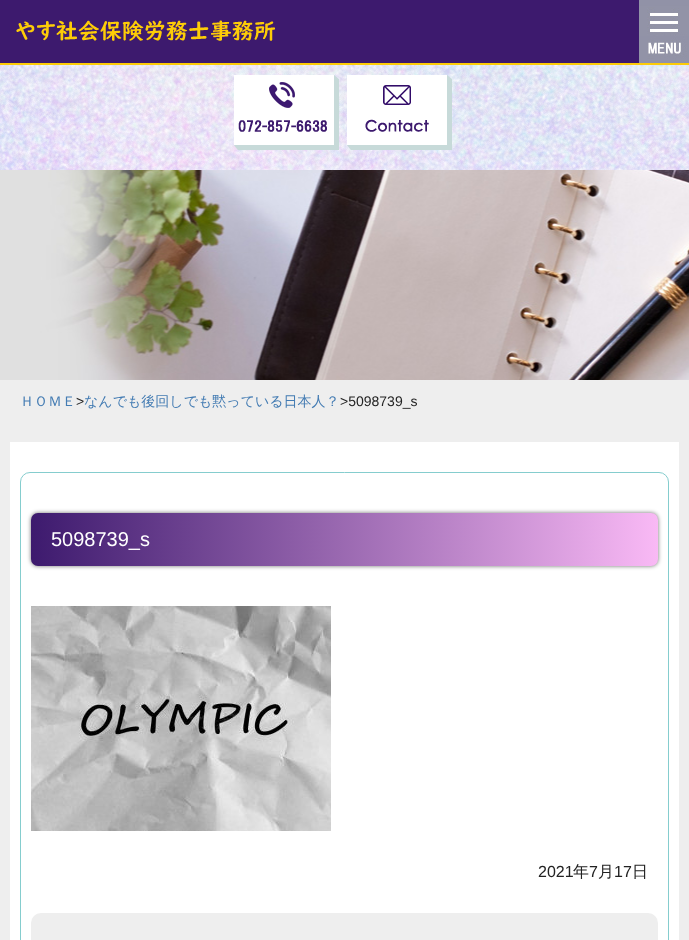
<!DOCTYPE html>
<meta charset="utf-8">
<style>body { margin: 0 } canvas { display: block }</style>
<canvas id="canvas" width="689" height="940"></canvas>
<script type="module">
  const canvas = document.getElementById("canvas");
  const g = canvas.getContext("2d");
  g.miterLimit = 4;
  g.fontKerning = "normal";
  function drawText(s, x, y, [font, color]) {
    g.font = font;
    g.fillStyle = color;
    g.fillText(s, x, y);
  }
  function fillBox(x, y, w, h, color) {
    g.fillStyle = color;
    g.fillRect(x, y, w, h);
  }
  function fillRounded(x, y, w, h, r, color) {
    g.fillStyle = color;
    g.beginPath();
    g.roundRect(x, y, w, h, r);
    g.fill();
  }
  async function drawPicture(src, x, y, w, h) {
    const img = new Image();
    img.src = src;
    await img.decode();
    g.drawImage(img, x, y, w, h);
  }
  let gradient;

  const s1 = ["500 14px WenQuanYi Zen Hei", "#447CB3"];
  const s2 = ["14px Liberation Sans", "#222222"];
  const s3 = ["20px Liberation Sans", "#FFFFFF"];
  const s4 = ["16px Liberation Sans", "#222222"];
  const s5 = ["500 16px WenQuanYi Zen Hei", "#222222"];

  fillBox(0, 0, 689, 940, "#EEEEEE");
  fillBox(0, 0, 639, 63, "#3D1A6E");
  await drawPicture("pic1.png", 16, 20, 259, 21);
  await drawPicture("pic2.png", 639, 0, 50, 63);
  await drawPicture("pic3.png", 0, 65, 689, 105);
  fillBox(0, 63, 689, 2, "#FDCC07");
  await drawPicture("pic4.png", 234, 75, 105, 75);
  await drawPicture("pic5.png", 347, 75, 105, 75);
  await drawPicture("pic6.png", 0, 170, 689, 210);
  drawText("ＨＯＭＥ", 20, 406, s1);
  drawText(">", 76, 406, s2);
  drawText("なんでも後回しでも黙っている日本人？", 84, 406, s1);
  drawText(">5098739_s", 340, 406, s2);
  fillBox(10, 442, 669, 498, "#FFFFFF");
  g.beginPath();
  g.roundRect(20.5, 472.5, 648, 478, 9.5);
  g.strokeStyle = "#85CDCE";
  g.stroke();
  g.fillStyle = "rgba(0, 0, 0, 0.56)";
  g.filter = "blur(2px)";
  g.beginPath();
  g.roundRect(31, 513, 627, 53, 7);
  g.fill();
  g.filter = "none";
  gradient = g.createLinearGradient(31, 540, 658, 540);
  gradient.addColorStop(0, "#3D1A6E");
  gradient.addColorStop(1, "#F9B9F5");
  g.fillStyle = gradient;
  g.beginPath();
  g.roundRect(31, 513, 627, 53, 7);
  g.fill();
  drawText("5098739_s", 51, 546, s3);
  await drawPicture("pic7.png", 31, 606, 300, 225);
  drawText("2021", 538, 877, s4);
  drawText("年", 573, 877, s5);
  drawText("7", 589, 877, s4);
  drawText("月", 598, 877, s5);
  drawText("17", 614, 877, s4);
  drawText("日", 632, 877, s5);
  fillRounded(31, 913, 627, 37, 10, "#EEEEEE");
</script>
